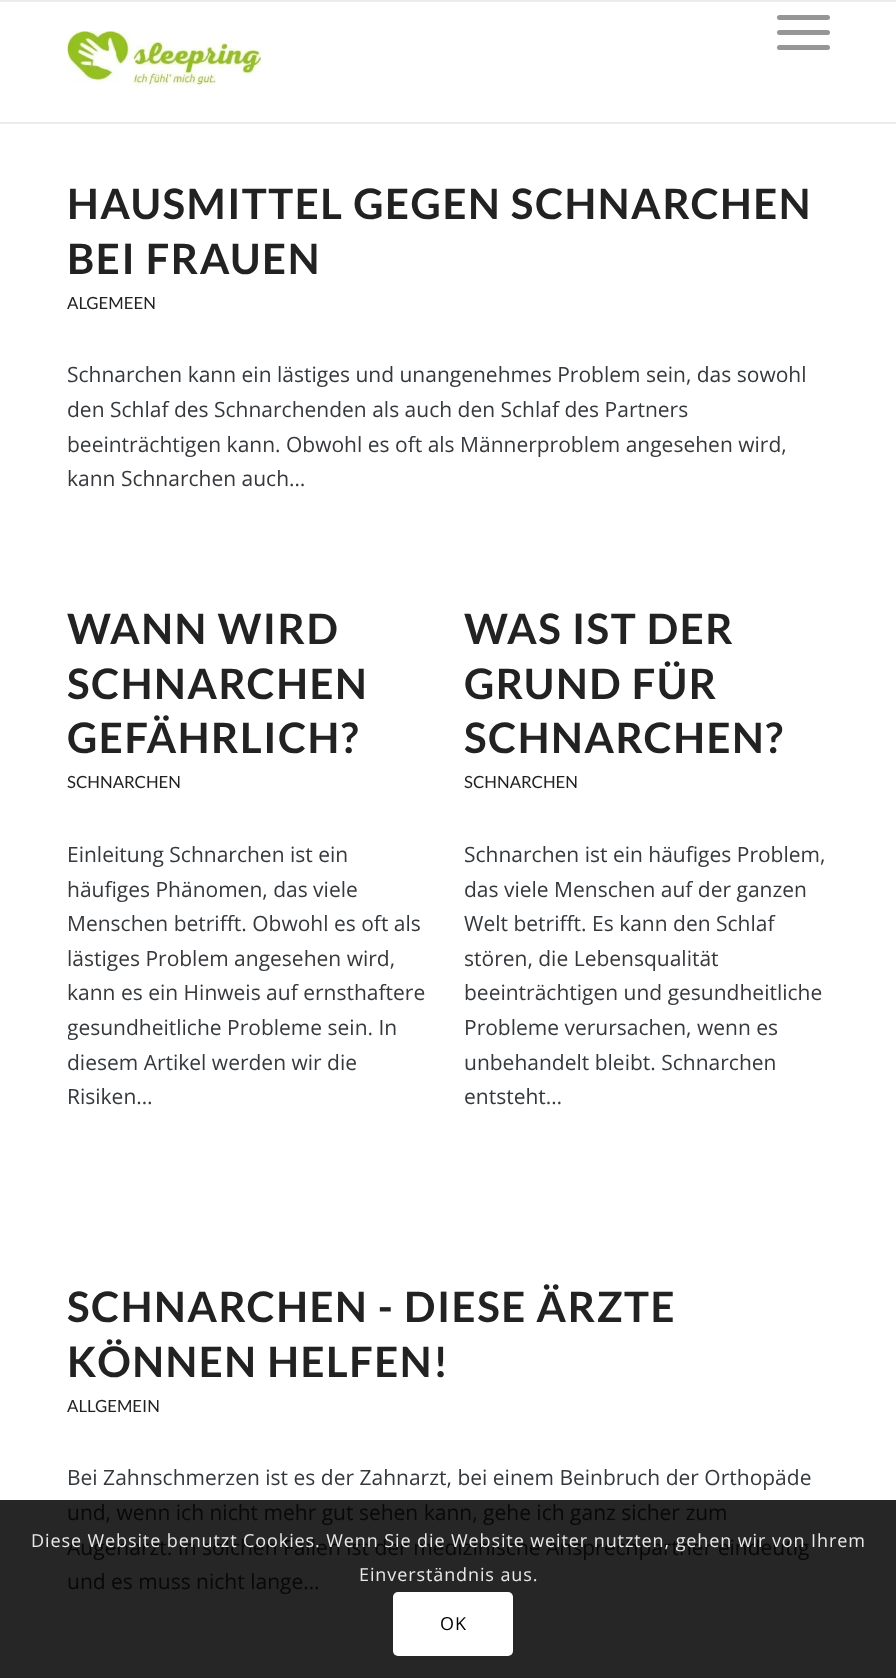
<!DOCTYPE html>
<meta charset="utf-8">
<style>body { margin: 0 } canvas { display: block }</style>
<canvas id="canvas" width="896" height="1678"></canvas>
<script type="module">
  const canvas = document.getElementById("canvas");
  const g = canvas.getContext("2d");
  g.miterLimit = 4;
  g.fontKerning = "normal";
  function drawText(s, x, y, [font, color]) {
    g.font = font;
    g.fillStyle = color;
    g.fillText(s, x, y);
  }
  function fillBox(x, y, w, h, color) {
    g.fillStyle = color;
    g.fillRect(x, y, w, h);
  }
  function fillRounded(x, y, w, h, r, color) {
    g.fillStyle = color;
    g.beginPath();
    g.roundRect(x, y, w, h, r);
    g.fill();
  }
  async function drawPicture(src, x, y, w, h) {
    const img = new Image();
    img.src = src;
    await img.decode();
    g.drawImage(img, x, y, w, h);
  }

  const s1 = ["bold 42px Lato", "#222222"];
  const s2 = ["16.75px Lato", "#222222"];
  const s3 = ["21px Open Sans", "#35383C"];
  const s4 = ["21px Open Sans", "#080809"];
  const s5 = ["18px Open Sans", "#E9E9E9"];
  const s6 = ["18px Open Sans", "#000000"];

  fillBox(0, 0, 896, 1678, "#FFFFFF");
  fillBox(0, 1500, 896, 178, "#262626");
  fillBox(0, 0, 896, 2, "#EBEBEB");
  fillBox(0, 122, 896, 2, "#EBEBEB");
  await drawPicture("pic1.png", 67, 31, 194, 57);
  fillRounded(777, 30, 53, 5, 2.5, "#969696");
  fillRounded(777, 15, 53, 5, 2.5, "#969696");
  fillRounded(777, 45, 53, 5, 2.5, "#969696");
  g.letterSpacing = "1.5px";
  drawText("HAUSMITTEL GEGEN SCHNARCHEN", 67, 219, s1);
  drawText("BEI FRAUEN", 67, 274, s1);
  g.letterSpacing = "0px";
  drawText("ALGEMEEN", 67, 309, s2);
  drawText("Schnarchen kann ein lästiges und unangenehmes Problem sein, das sowohl", 67, 382, s3);
  drawText("den Schlaf des Schnarchenden als auch den Schlaf des Partners", 67, 417, s3);
  drawText("beeinträchtigen kann. Obwohl es oft als Männerproblem angesehen wird,", 67, 452, s3);
  drawText("kann Schnarchen auch…", 67, 486, s3);
  g.letterSpacing = "1.5px";
  drawText("WANN WIRD", 67, 644, s1);
  drawText("SCHNARCHEN", 67, 699, s1);
  drawText("GEFÄHRLICH?", 67, 753, s1);
  g.letterSpacing = "0px";
  drawText("SCHNARCHEN", 67, 788, s2);
  drawText("Einleitung Schnarchen ist ein", 67, 862, s3);
  drawText("häufiges Phänomen, das viele", 67, 897, s3);
  drawText("Menschen betrifft. Obwohl es oft als", 67, 931, s3);
  drawText("lästiges Problem angesehen wird,", 67, 966, s3);
  drawText("kann es ein Hinweis auf ernsthaftere", 67, 1000, s3);
  g.save();
  g.beginPath();
  g.rect(68, 837, 366, 276);
  g.clip();
  drawText("gesundheitliche Probleme sein. In", 67, 1035, s3);
  g.restore();
  drawText("diesem Artikel werden wir die", 67, 1070, s3);
  drawText("Risiken…", 67, 1104, s3);
  g.letterSpacing = "1.5px";
  drawText("WAS IST DER", 464, 644, s1);
  drawText("GRUND FÜR", 464, 699, s1);
  drawText("SCHNARCHEN?", 464, 753, s1);
  g.letterSpacing = "0px";
  drawText("SCHNARCHEN", 464, 788, s2);
  drawText("Schnarchen ist ein häufiges Problem,", 464, 862, s3);
  drawText("das viele Menschen auf der ganzen", 464, 897, s3);
  drawText("Welt betrifft. Es kann den Schlaf", 464, 931, s3);
  drawText("stören, die Lebensqualität", 464, 966, s3);
  drawText("beeinträchtigen und gesundheitliche", 464, 1000, s3);
  drawText("Probleme verursachen, wenn es", 464, 1035, s3);
  drawText("unbehandelt bleibt. Schnarchen", 464, 1070, s3);
  drawText("entsteht…", 464, 1104, s3);
  g.letterSpacing = "1.5px";
  drawText("SCHNARCHEN - DIESE ÄRZTE", 67, 1322, s1);
  drawText("KÖNNEN HELFEN!", 67, 1377, s1);
  g.letterSpacing = "0px";
  drawText("ALLGEMEIN", 67, 1412, s2);
  drawText("Bei Zahnschmerzen ist es der Zahnarzt, bei einem Beinbruch der Orthopäde", 67, 1485, s3);
  drawText("und, wenn ich nicht mehr gut sehen kann, gehe ich ganz sicher zum", 67, 1520, s4);
  drawText("Augenarzt. In solchen Fällen ist der medizinische Ansprechpartner eindeutig", 67, 1555, s4);
  drawText("und es muss nicht lange…", 67, 1589, s4);
  g.letterSpacing = "0.9px";
  drawText("Diese Website benutzt Cookies. Wenn Sie die Website weiter nutzten, gehen wir von Ihrem", 31, 1547, s5);
  drawText("Einverständnis aus.", 359, 1581, s5);
  fillRounded(393, 1592, 120, 64, 5, "#FFFFFF");
  drawText("OK", 440, 1630, s6);
</script>
